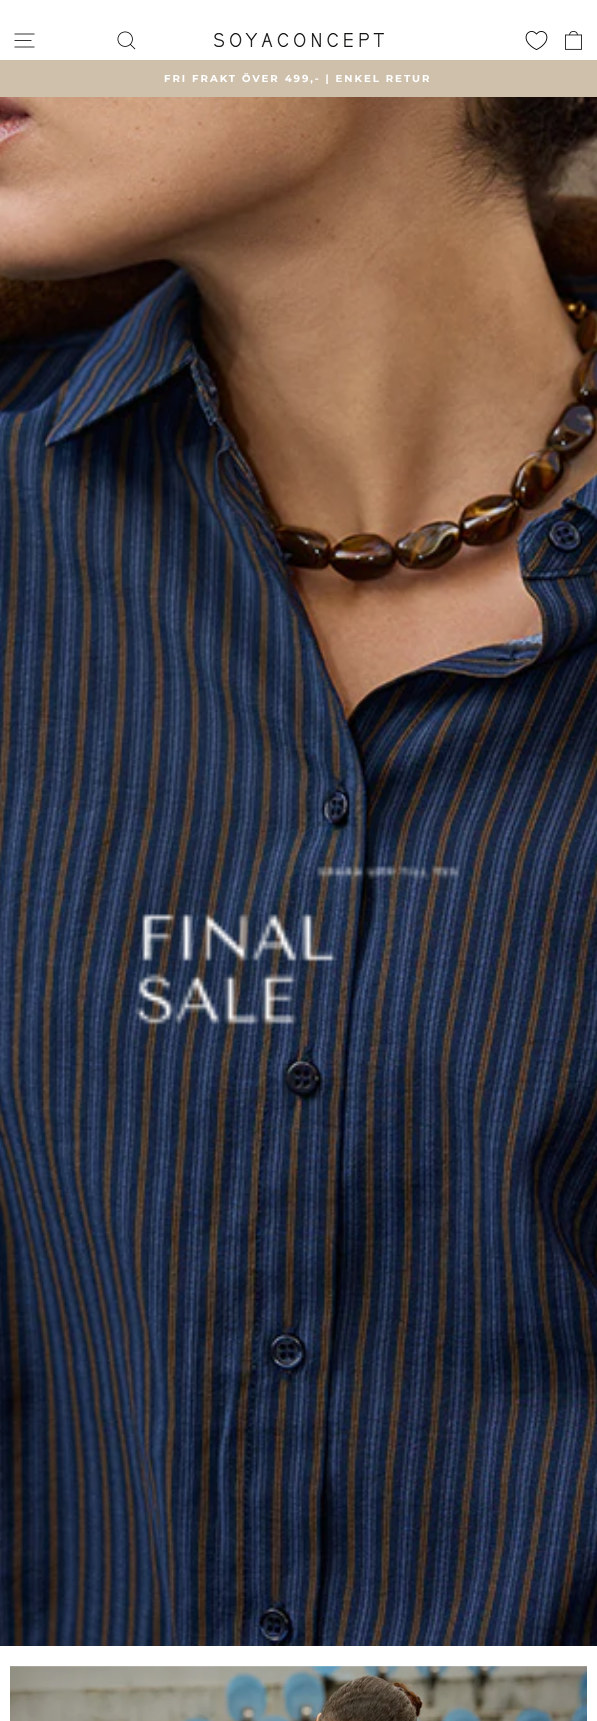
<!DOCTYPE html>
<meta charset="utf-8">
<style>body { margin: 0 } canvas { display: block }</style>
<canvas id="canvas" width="597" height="1721"></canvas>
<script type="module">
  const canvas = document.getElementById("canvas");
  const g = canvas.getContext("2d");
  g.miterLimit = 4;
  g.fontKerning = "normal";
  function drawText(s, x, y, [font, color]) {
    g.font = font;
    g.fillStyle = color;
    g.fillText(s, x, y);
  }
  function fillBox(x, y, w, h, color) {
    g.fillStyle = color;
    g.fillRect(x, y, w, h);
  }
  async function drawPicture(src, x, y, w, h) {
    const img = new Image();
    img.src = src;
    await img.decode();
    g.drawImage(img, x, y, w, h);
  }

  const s1 = ["bold 10.1px Montserrat", "#FFFFFF"];

  fillBox(0, 0, 597, 1721, "#FFFFFF");
  g.beginPath();
  g.moveTo(14.5, 34);
  g.lineTo(34.5, 34);
  g.moveTo(14.5, 40.5);
  g.lineTo(31.5, 40.5);
  g.moveTo(14.5, 47);
  g.lineTo(34.5, 47);
  g.strokeStyle = "#000000";
  g.lineWidth = 0.8;
  g.stroke();
  await drawPicture("pic1.png", 117, 31, 19, 19);
  await drawPicture("pic2.png", 214, 33, 170, 14);
  await drawPicture("pic3.png", 525, 31, 23, 19);
  await drawPicture("pic4.png", 565, 31, 17, 19);
  fillBox(0, 60, 597, 37, "#CFC0AB");
  g.letterSpacing = "2px";
  drawText("FRI FRAKT ÖVER 499,- | ENKEL RETUR", 164, 82, s1);
  await drawPicture("pic5.png", 0, 97, 597, 1549);
  await drawPicture("pic6.png", 124, 865, 336, 188);
  await drawPicture("pic7.png", 10, 1666, 577, 55);
</script>
